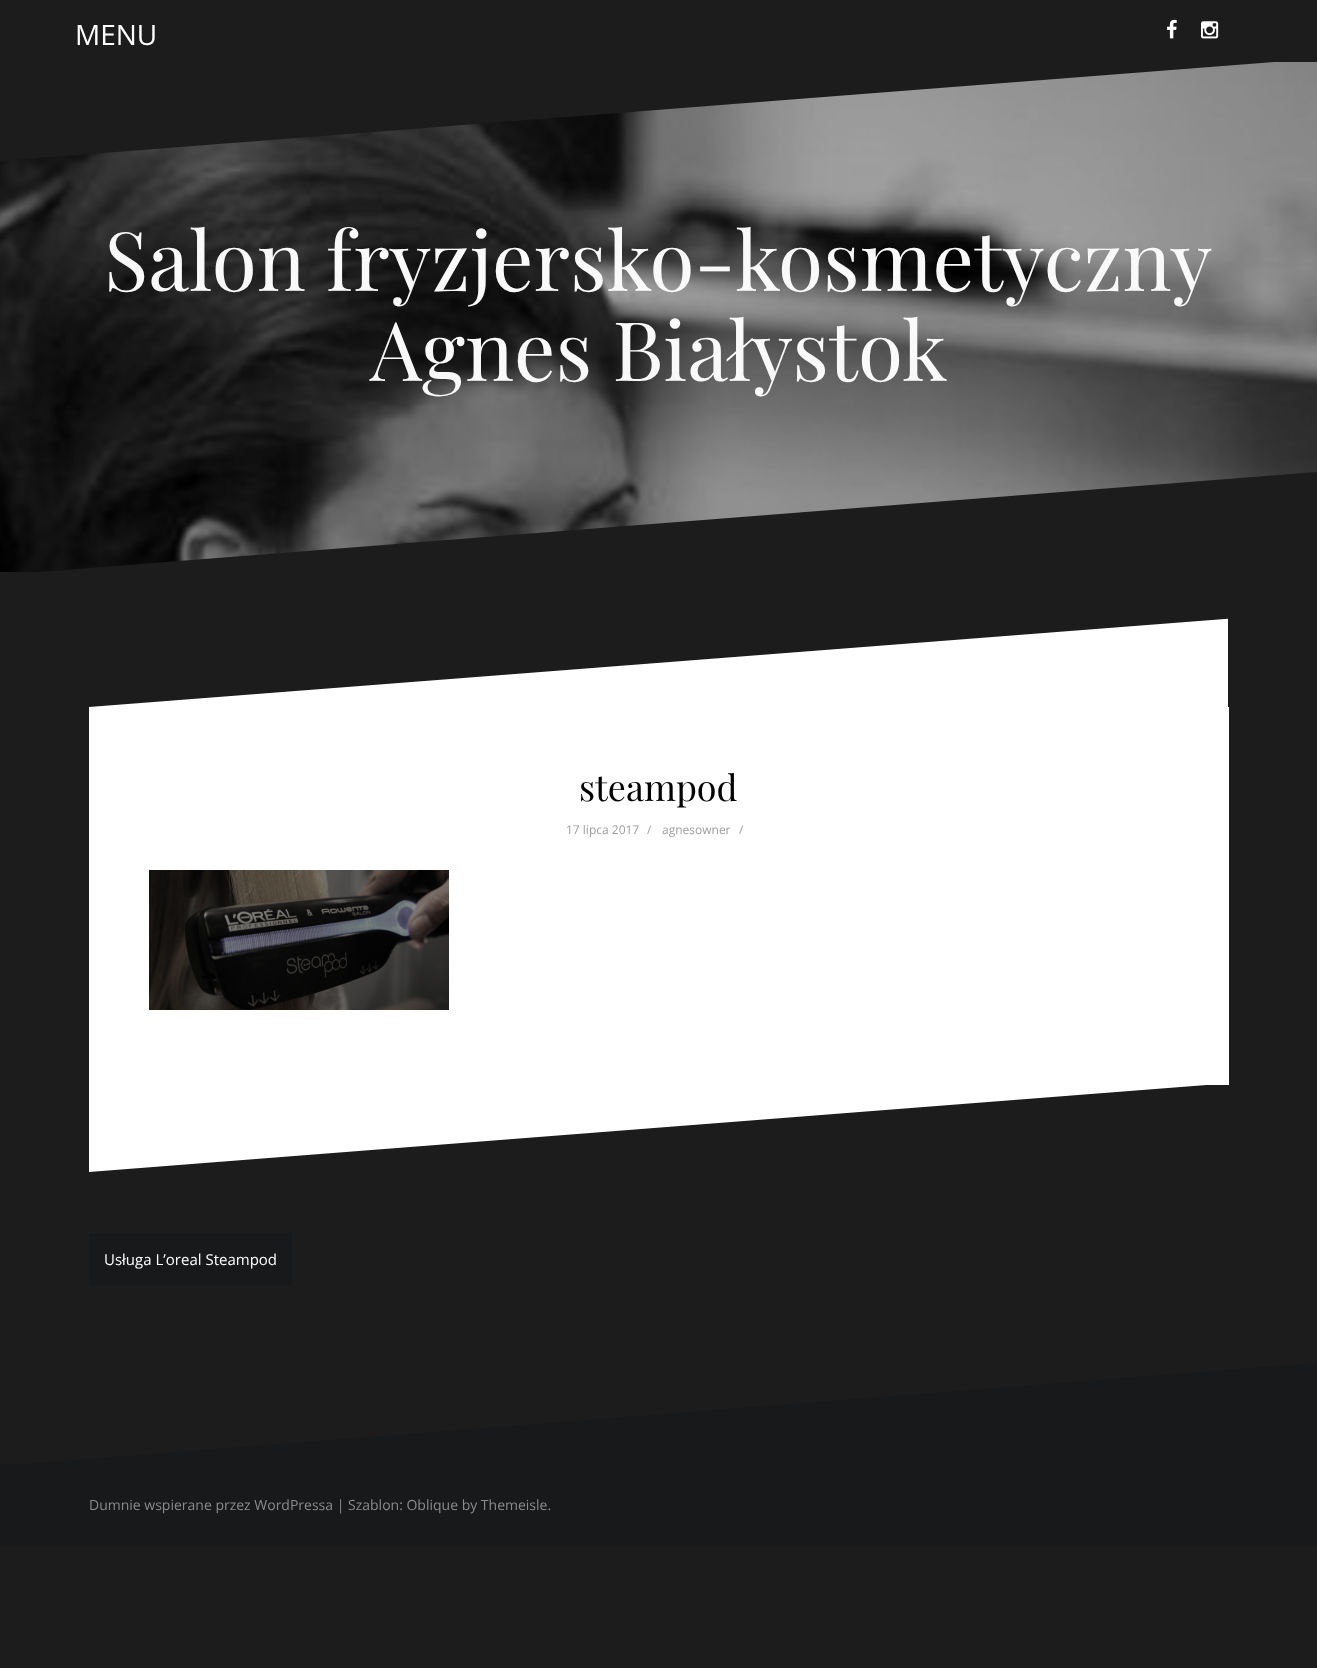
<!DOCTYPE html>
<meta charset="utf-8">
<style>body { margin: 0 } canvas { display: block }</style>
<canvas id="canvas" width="1317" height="1668"></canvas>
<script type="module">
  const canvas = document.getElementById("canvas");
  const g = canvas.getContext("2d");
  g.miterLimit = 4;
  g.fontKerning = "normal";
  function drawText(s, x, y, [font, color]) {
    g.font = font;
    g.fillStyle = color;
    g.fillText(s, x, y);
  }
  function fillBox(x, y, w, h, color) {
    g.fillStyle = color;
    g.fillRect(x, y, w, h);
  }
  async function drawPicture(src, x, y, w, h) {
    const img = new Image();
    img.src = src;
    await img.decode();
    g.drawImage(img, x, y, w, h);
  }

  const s1 = ["28px Open Sans", "#FFFFFF"];
  const s2 = ["82px Playfair Display", "#F9F9F9"];
  const s3 = ["36px Playfair Display", "#000000"];
  const s4 = ["12px Open Sans", "#9D9D9D"];
  const s5 = ["15px Open Sans", "#FFFFFF"];
  const s6 = ["14px Open Sans", "#8B8B8B"];

  fillBox(0, 0, 1317, 1668, "#1C1C1C");
  drawText("MENU", 75, 45, s1);
  await drawPicture("pic1.png", 1167, 19, 10, 20);
  await drawPicture("pic2.png", 1201, 21, 18, 18);
  await drawPicture("pic3.png", 0, 62, 1317, 510);
  g.fillStyle = "#1C1C1C";
  g.beginPath();
  g.moveTo(0, 161);
  g.lineTo(0, 60);
  g.lineTo(1300, 60);
  g.fill();
  drawText("Salon fryzjersko-kosmetyczny", 104, 291, s2);
  drawText("Agnes Białystok", 370, 381, s2);
  g.save();
  g.beginPath();
  g.rect(0, 470, 1317, 104);
  g.clip();
  g.fillStyle = "#1C1C1C";
  g.beginPath();
  g.moveTo(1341, 470);
  g.lineTo(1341, 575);
  g.lineTo(0, 575);
  g.fill();
  g.restore();
  g.save();
  g.beginPath();
  g.rect(89, 617, 1139, 91);
  g.clip();
  g.fillStyle = "#FFFFFF";
  g.beginPath();
  g.moveTo(1250, 617);
  g.lineTo(1250, 707);
  g.lineTo(89, 707);
  g.fill();
  g.restore();
  fillBox(89, 707, 1140, 378, "#FFFFFF");
  drawText("steampod", 579, 801, s3);
  drawText("17 lipca 2017", 566, 834, s4);
  drawText("/", 647, 834, s4);
  drawText("agnesowner", 662, 834, s4);
  drawText("/", 739, 834, s4);
  await drawPicture("pic4.png", 149, 870, 300, 140);
  g.save();
  g.beginPath();
  g.rect(89, 1083, 1140, 89);
  g.clip();
  g.fillStyle = "#FFFFFF";
  g.beginPath();
  g.moveTo(89, 1172);
  g.lineTo(89, 1083);
  g.lineTo(1232, 1083);
  g.fill();
  g.restore();
  fillBox(89, 1233, 203, 53, "#17191B");
  drawText("Usługa L’oreal Steampod", 104, 1265, s5);
  fillBox(0, 1464, 1317, 82, "#17191B");
  g.beginPath();
  g.moveTo(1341, 1361);
  g.lineTo(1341, 1466);
  g.lineTo(0, 1466);
  g.fill();
  drawText("Dumnie wspierane przez WordPressa | Szablon: Oblique by Themeisle.", 89, 1510, s6);
</script>
